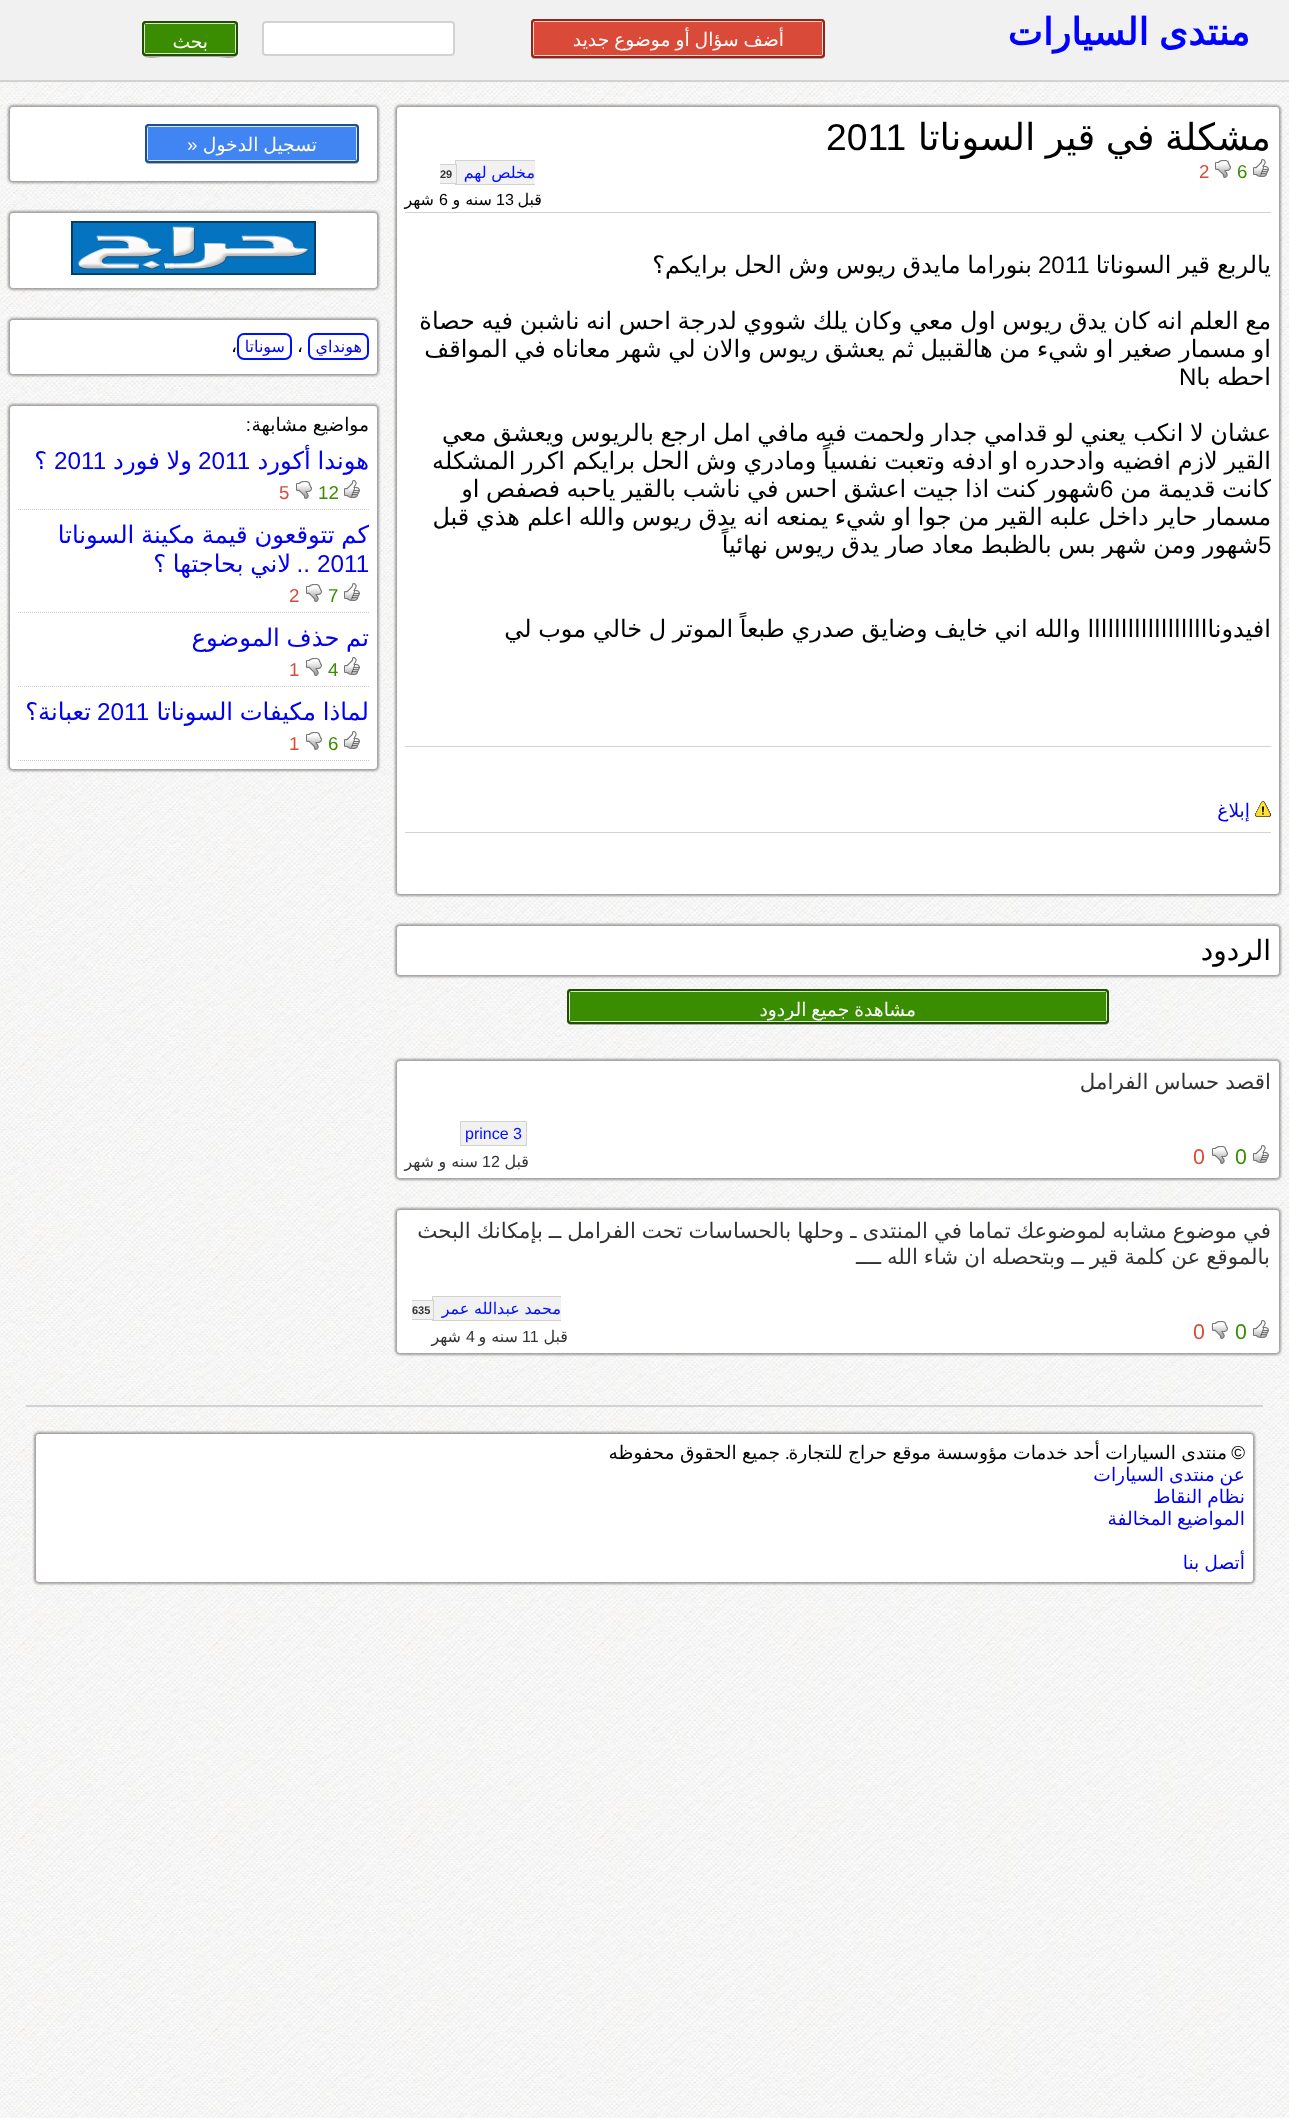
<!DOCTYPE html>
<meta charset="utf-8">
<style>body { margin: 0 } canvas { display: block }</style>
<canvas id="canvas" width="1289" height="2118"></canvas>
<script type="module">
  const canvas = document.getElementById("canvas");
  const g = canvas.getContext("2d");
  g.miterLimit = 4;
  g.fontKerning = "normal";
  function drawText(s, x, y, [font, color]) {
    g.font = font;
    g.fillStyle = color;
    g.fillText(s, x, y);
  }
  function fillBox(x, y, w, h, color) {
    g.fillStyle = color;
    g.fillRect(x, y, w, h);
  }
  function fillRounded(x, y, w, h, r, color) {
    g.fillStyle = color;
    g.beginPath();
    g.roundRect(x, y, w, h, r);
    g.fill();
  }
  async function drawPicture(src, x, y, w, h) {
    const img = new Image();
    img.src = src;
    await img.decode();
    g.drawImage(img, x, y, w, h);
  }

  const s1 = ["bold 37.25px DejaVu Sans", "#0000FF"];
  const s2 = ["18.7px DejaVu Sans", "#FFFFFF"];
  const s3 = ["37.25px DejaVu Sans", "#000000"];
  const s4 = ["37.25px Liberation Sans", "#000000"];
  const s5 = ["18.7px Liberation Sans", "#3A8C00"];
  const s6 = ["18.7px Liberation Sans", "#D94A38"];
  const s7 = ["16px DejaVu Sans", "#000FFF"];
  const s8 = ["bold 11px Liberation Sans", "#333333"];
  const s9 = ["16px DejaVu Sans", "#000000"];
  const s10 = ["16px Liberation Sans", "#000000"];
  const s11 = ["24px DejaVu Sans", "#000000"];
  const s12 = ["24px Liberation Sans", "#000000"];
  const s13 = ["18.7px DejaVu Sans", "#0000EE"];
  const s14 = ["28px DejaVu Sans", "#000000"];
  const s15 = ["21.35px DejaVu Sans", "#333333"];
  const s16 = ["21.35px Liberation Sans", "#3A8C00"];
  const s17 = ["21.35px Liberation Sans", "#D94A38"];
  const s18 = ["16px Liberation Sans", "#000FFF"];
  const s19 = ["16px DejaVu Sans", "#333333"];
  const s20 = ["16px Liberation Sans", "#333333"];
  const s21 = ["18.7px Liberation Sans", "#FFFFFF"];
  const s22 = ["16px DejaVu Sans", "#0000EE"];
  const s23 = ["18.7px DejaVu Sans", "#000000"];
  const s24 = ["18.7px Liberation Sans", "#000000"];
  const s25 = ["24.25px DejaVu Sans", "#0000EE"];
  const s26 = ["24.25px Liberation Sans", "#0000EE"];

  fillBox(0, 0, 1289, 2118, "#FFFFFF");
  await drawPicture("pic1.png", 0, 82, 1289, 2036);
  fillBox(0, 0, 1289, 80, "#F1F1F1");
  fillBox(0, 80, 1289, 2, "#D2D2D2");
  g.wordSpacing = "-1.5px";
  g.direction = "rtl";
  drawText("منتدى السيارات", 1250, 45, s1);
  g.fillStyle = "#A9A9A9";
  g.beginPath();
  g.moveTo(531, 54);
  g.bezierCurveTo(531, 57, 532, 59, 535, 59);
  g.lineTo(821, 59);
  g.lineTo(824, 58);
  g.bezierCurveTo(825, 57, 825, 56, 825, 54);
  g.bezierCurveTo(825, 56, 823, 58, 821, 58);
  g.lineTo(535, 58);
  g.bezierCurveTo(533, 58, 531, 56, 531, 54);
  g.closePath();
  g.fill();
  fillRounded(531, 19, 294, 39, 4, "#D94A38");
  g.beginPath();
  g.roundRect(533.5, 21.5, 289, 34, 1);
  g.strokeStyle = "#F7DBD7";
  g.stroke();
  g.beginPath();
  g.roundRect(532, 20, 292, 37, 3);
  g.strokeStyle = "#932417";
  g.lineWidth = 2;
  g.stroke();
  g.wordSpacing = "-1px";
  drawText("أضف سؤال أو موضوع جديد", 784, 46, s2);
  g.beginPath();
  g.roundRect(263, 22, 191, 33, 3);
  g.fill();
  g.strokeStyle = "#D2D2D2";
  g.stroke();
  g.fillStyle = "#A9A9A9";
  g.beginPath();
  g.moveTo(142, 52);
  g.bezierCurveTo(142, 61, 157, 57, 161, 57);
  g.lineTo(219, 57);
  g.bezierCurveTo(223, 57, 238, 61, 238, 52);
  g.bezierCurveTo(238, 54, 236, 56, 234, 56);
  g.lineTo(146, 56);
  g.bezierCurveTo(144, 56, 142, 54, 142, 52);
  g.closePath();
  g.fill();
  fillRounded(142, 21, 96, 35, 4, "#3A8C00");
  g.beginPath();
  g.roundRect(144.5, 23.5, 91, 30, 1);
  g.strokeStyle = "#D8E8CC";
  g.lineWidth = 1;
  g.stroke();
  g.beginPath();
  g.roundRect(143, 22, 94, 33, 3);
  g.strokeStyle = "#214F00";
  g.lineWidth = 2;
  g.stroke();
  g.wordSpacing = "0px";
  drawText("بحث", 208, 48, s2);
  g.fillStyle = "rgba(34, 25, 25, 0.4)";
  g.filter = "blur(1px)";
  g.beginPath();
  g.roundRect(395, 105, 886, 791, 5);
  g.fill();
  g.filter = "none";
  fillRounded(397, 107, 882, 787, 3, "#FFFFFF");
  await drawPicture("pic2.png", 1253, 159, 16, 18);
  g.wordSpacing = "-1.5px";
  drawText("مشكلة في قير السوناتا", 1271, 150, s3);
  g.wordSpacing = "0px";
  g.direction = "ltr";
  drawText("2011", 826, 150, s4);
  drawText("6", 1237, 178, s5);
  await drawPicture("pic3.png", 1215, 160, 16, 18);
  drawText("2", 1199, 178, s6);
  fillBox(456, 161, 79, 23, "#F1F1F1");
  g.wordSpacing = "-0.5px";
  g.direction = "rtl";
  drawText("مخلص لهم", 535, 178, s7);
  fillBox(455, 160, 80, 1, "#D2D2D2");
  fillBox(455, 184, 80, 1, "#D2D2D2");
  fillBox(455, 160, 1, 25, "#D2D2D2");
  fillBox(440, 165, 16, 18, "#F1F1F1");
  g.wordSpacing = "0px";
  g.direction = "ltr";
  drawText("29", 440, 178, s8);
  fillBox(440, 164, 17, 1, "#D2D2D2");
  fillBox(456, 164, 1, 20, "#D2D2D2");
  fillBox(440, 183, 17, 1, "#D2D2D2");
  g.direction = "rtl";
  drawText("قبل", 542, 205, s9);
  g.direction = "ltr";
  drawText("13", 496, 205, s10);
  g.direction = "rtl";
  drawText("سنه و", 492, 205, s9);
  g.direction = "ltr";
  drawText("6", 439, 205, s10);
  g.direction = "rtl";
  drawText("شهر", 434, 205, s9);
  fillBox(405, 212, 866, 1, "#D2D2D2");
  drawText("يالربع", 1271, 273, s11);
  g.wordSpacing = "-1px";
  drawText("قير السوناتا", 1210, 273, s11);
  g.wordSpacing = "0px";
  g.direction = "ltr";
  drawText("2011", 1038, 273, s12);
  g.wordSpacing = "-1px";
  g.direction = "rtl";
  drawText("بنوراما مايدق ريوس وش الحل برايكم؟", 1032, 273, s11);
  drawText("مع العلم انه كان يدق ريوس اول معي وكان يلك شووي لدرجة احس انه ناشبن فيه حصاة", 1271, 329, s11);
  drawText("او مسمار صغير او شيء من هالقبيل ثم يعشق ريوس والان لي شهر معاناه في المواقف", 1271, 357, s11);
  drawText("احطه با", 1271, 385, s11);
  g.wordSpacing = "0px";
  g.direction = "ltr";
  drawText("N", 1179, 385, s12);
  g.wordSpacing = "-1px";
  g.direction = "rtl";
  drawText("عشان لا انكب", 1271, 441, s11);
  drawText("يعني لو قدامي جدار", 1126, 441, s11);
  drawText("ولحمت فيه", 925, 441, s11);
  drawText("مافي امل ارجع بالريوس ويعشق معي", 809, 441, s11);
  drawText("القير لازم افضيه وادحدره او ادفه", 1271, 469, s11);
  drawText("وتعبت نفسياً ومادري وش الحل برايكم", 945, 469, s11);
  drawText("اكرر المشكله", 565, 469, s11);
  drawText("كانت قديمة من", 1271, 497, s11);
  g.wordSpacing = "0px";
  g.direction = "ltr";
  drawText("6", 1100, 497, s12);
  g.direction = "rtl";
  drawText("شهور", 1100, 497, s11);
  g.wordSpacing = "-1px";
  drawText("كنت اذا جيت اعشق احس في ناشب بالقير ياحبه فصفص او", 1038, 497, s11);
  drawText("مسمار حاير داخل علبه القير من جوا", 1271, 525, s11);
  drawText("او شيء يمنعه انه يدق ريوس والله اعلم", 911, 525, s11);
  drawText("هذي قبل", 520, 525, s11);
  g.wordSpacing = "0px";
  g.direction = "ltr";
  drawText("5", 1258, 553, s12);
  g.direction = "rtl";
  drawText("شهور", 1258, 553, s11);
  g.wordSpacing = "-1px";
  drawText("ومن شهر بس بالظبط معاد صار يدق ريوس نهائياً", 1196, 553, s11);
  drawText("افيدونااااااااااااااااااا والله اني خايف وضايق صدري طبعاً الموتر ل خالي موب لي", 1271, 637, s11);
  fillBox(405, 746, 866, 1, "#D2D2D2");
  await drawPicture("pic4.png", 1255, 801, 16, 16);
  g.wordSpacing = "0px";
  drawText("إبلاغ", 1250, 817, s13);
  fillBox(405, 832, 866, 1, "#D2D2D2");
  g.fillStyle = "rgba(34, 25, 25, 0.4)";
  g.filter = "blur(1px)";
  g.beginPath();
  g.roundRect(395, 924, 886, 53, 5);
  g.fill();
  g.filter = "none";
  fillRounded(397, 926, 882, 49, 3, "#FFFFFF");
  drawText("الردود", 1271, 960, s14);
  g.fillStyle = "rgba(0, 0, 0, 0.3)";
  g.beginPath();
  g.moveTo(567, 1020);
  g.lineTo(567, 1021);
  g.bezierCurveTo(567, 1023, 569, 1025, 571, 1025);
  g.lineTo(1105, 1025);
  g.bezierCurveTo(1107, 1025, 1109, 1023, 1109, 1021);
  g.lineTo(1109, 1020);
  g.bezierCurveTo(1109, 1022, 1107, 1024, 1105, 1024);
  g.lineTo(571, 1024);
  g.bezierCurveTo(569, 1024, 567, 1022, 567, 1020);
  g.closePath();
  g.fill();
  fillRounded(567, 989, 542, 35, 4, "#3A8C00");
  g.beginPath();
  g.roundRect(569.5, 991.5, 537, 30, 1);
  g.strokeStyle = "#D8E8CC";
  g.lineWidth = 1;
  g.stroke();
  g.beginPath();
  g.roundRect(568, 990, 540, 33, 3);
  g.strokeStyle = "#214F00";
  g.lineWidth = 2;
  g.stroke();
  g.wordSpacing = "-1px";
  drawText("مشاهدة جميع الردود", 916, 1016, s2);
  g.fillStyle = "rgba(34, 25, 25, 0.4)";
  g.filter = "blur(1px)";
  g.beginPath();
  g.roundRect(395, 1059, 886, 121, 5);
  g.fill();
  g.filter = "none";
  fillRounded(397, 1061, 882, 117, 3, "#FFFFFF");
  g.wordSpacing = "-0.8px";
  drawText("اقصد حساس الفرامل", 1271, 1089, s15);
  await drawPicture("pic2.png", 1253, 1145, 16, 18);
  g.wordSpacing = "0px";
  g.direction = "ltr";
  drawText("0", 1235, 1164, s16);
  await drawPicture("pic3.png", 1212, 1146, 16, 18);
  drawText("0", 1193, 1164, s17);
  g.fillStyle = "#F1F1F1";
  g.beginPath();
  g.rect(460.5, 1121.5, 66, 24);
  g.fill();
  g.strokeStyle = "#D2D2D2";
  g.lineWidth = 1;
  g.stroke();
  drawText("prince 3", 465, 1139, s18);
  g.direction = "rtl";
  drawText("قبل", 529, 1167, s19);
  g.direction = "ltr";
  drawText("12", 482, 1167, s20);
  g.direction = "rtl";
  drawText("سنه و", 478, 1167, s19);
  drawText("شهر", 434, 1167, s19);
  g.fillStyle = "rgba(34, 25, 25, 0.4)";
  g.filter = "blur(1px)";
  g.beginPath();
  g.roundRect(395, 1208, 886, 147, 5);
  g.fill();
  g.filter = "none";
  fillRounded(397, 1210, 882, 143, 3, "#FFFFFF");
  g.wordSpacing = "-0.8px";
  drawText("في موضوع مشابه لموضوعك تماما في المنتدى ـ وحلها بالحساسات تحت الفرامل ــ بإمكانك البحث", 1271, 1238, s15);
  drawText("بالموقع عن كلمة قير ــ وبتحصله ان شاء الله ــــ", 1270, 1264, s15);
  await drawPicture("pic2.png", 1253, 1320, 16, 18);
  g.wordSpacing = "0px";
  g.direction = "ltr";
  drawText("0", 1235, 1339, s16);
  await drawPicture("pic3.png", 1212, 1321, 16, 18);
  drawText("0", 1193, 1339, s17);
  fillBox(433, 1297, 128, 23, "#F1F1F1");
  g.wordSpacing = "-0.5px";
  g.direction = "rtl";
  drawText("محمد عبدالله عمر", 561, 1314, s7);
  fillBox(432, 1296, 129, 1, "#D2D2D2");
  fillBox(432, 1320, 129, 1, "#D2D2D2");
  fillBox(432, 1296, 1, 25, "#D2D2D2");
  fillBox(412, 1301, 21, 18, "#F1F1F1");
  g.wordSpacing = "0px";
  g.direction = "ltr";
  drawText("635", 412, 1314, s8);
  fillBox(412, 1300, 22, 1, "#D2D2D2");
  fillBox(433, 1300, 1, 20, "#D2D2D2");
  fillBox(412, 1319, 22, 1, "#D2D2D2");
  g.direction = "rtl";
  drawText("قبل", 568, 1342, s19);
  g.direction = "ltr";
  drawText("11", 522, 1342, s20);
  g.direction = "rtl";
  drawText("سنه و", 518, 1342, s19);
  g.direction = "ltr";
  drawText("4", 466, 1342, s20);
  g.direction = "rtl";
  drawText("شهر", 461, 1342, s19);
  g.fillStyle = "rgba(34, 25, 25, 0.4)";
  g.filter = "blur(1px)";
  g.beginPath();
  g.roundRect(8, 105, 371, 78, 5);
  g.fill();
  g.filter = "none";
  fillRounded(10, 107, 367, 74, 3, "#FFFFFF");
  g.fillStyle = "#B3B3B3";
  g.beginPath();
  g.moveTo(145, 159);
  g.lineTo(145, 160);
  g.bezierCurveTo(145, 162, 147, 164, 149, 164);
  g.lineTo(355, 164);
  g.bezierCurveTo(357, 164, 359, 162, 359, 160);
  g.lineTo(359, 159);
  g.bezierCurveTo(359, 161, 357, 163, 355, 163);
  g.lineTo(149, 163);
  g.bezierCurveTo(147, 163, 145, 161, 145, 159);
  g.closePath();
  g.fill();
  fillRounded(145, 124, 214, 39, 4, "#4185F3");
  g.beginPath();
  g.roundRect(147.5, 126.5, 209, 34, 1);
  g.strokeStyle = "#D9E7FD";
  g.stroke();
  g.beginPath();
  g.roundRect(146, 125, 212, 37, 3);
  g.strokeStyle = "#1D4D9B";
  g.lineWidth = 2;
  g.stroke();
  g.wordSpacing = "-1px";
  drawText("تسجيل الدخول", 317, 151, s2);
  g.wordSpacing = "0px";
  g.direction = "ltr";
  drawText("»", 187, 151, s21);
  g.fillStyle = "rgba(34, 25, 25, 0.4)";
  g.filter = "blur(1px)";
  g.beginPath();
  g.roundRect(8, 211, 371, 79, 5);
  g.fill();
  g.filter = "none";
  fillRounded(10, 213, 367, 75, 3, "#FFFFFF");
  await drawPicture("pic5.png", 71, 221, 245, 54);
  g.fillStyle = "rgba(34, 25, 25, 0.4)";
  g.filter = "blur(1px)";
  g.beginPath();
  g.roundRect(8, 318, 371, 58, 5);
  g.fill();
  g.filter = "none";
  fillRounded(10, 320, 367, 54, 3, "#FFFFFF");
  g.beginPath();
  g.roundRect(309, 334, 59, 25, 6);
  g.strokeStyle = "#000FFF";
  g.stroke();
  g.direction = "rtl";
  drawText("هونداي", 362, 352, s22);
  g.direction = "ltr";
  drawText("،", 297, 352, s23);
  g.beginPath();
  g.roundRect(238, 334, 53, 25, 6);
  g.stroke();
  g.direction = "rtl";
  drawText("سوناتا", 285, 352, s22);
  g.direction = "ltr";
  drawText("،", 231, 352, s23);
  g.fillStyle = "rgba(34, 25, 25, 0.4)";
  g.filter = "blur(1px)";
  g.beginPath();
  g.roundRect(8, 404, 371, 367, 5);
  g.fill();
  g.filter = "none";
  fillRounded(10, 406, 367, 363, 3, "#FFFFFF");
  g.wordSpacing = "-1px";
  g.direction = "rtl";
  drawText("مواضيع مشابهة", 369, 431, s23);
  g.wordSpacing = "0px";
  drawText(":", 251, 431, s24);
  g.beginPath();
  g.moveTo(18, 509.5);
  g.lineTo(369, 509.5);
  g.strokeStyle = "#CCCCCC";
  g.lineWidth = 1;
  g.setLineDash([1, 1]);
  g.stroke();
  g.wordSpacing = "-1px";
  drawText("هوندا أكورد", 369, 469, s25);
  g.wordSpacing = "0px";
  g.direction = "ltr";
  drawText("2011", 198, 469, s26);
  g.wordSpacing = "-1px";
  g.direction = "rtl";
  drawText("ولا فورد", 192, 469, s25);
  g.wordSpacing = "0px";
  g.direction = "ltr";
  drawText("2011", 54, 469, s26);
  g.direction = "rtl";
  drawText("؟", 47, 469, s25);
  await drawPicture("pic2.png", 344, 480, 16, 18);
  g.direction = "ltr";
  drawText("12", 318, 499, s5);
  await drawPicture("pic3.png", 296, 481, 16, 18);
  drawText("5", 279, 499, s6);
  g.beginPath();
  g.moveTo(18, 612.5);
  g.lineTo(369, 612.5);
  g.stroke();
  g.wordSpacing = "-1px";
  g.direction = "rtl";
  drawText("كم تتوقعون قيمة مكينة السوناتا", 369, 543, s25);
  g.wordSpacing = "0px";
  g.direction = "ltr";
  drawText("2011", 317, 572, s26);
  g.direction = "rtl";
  drawText("..", 310, 572, s26);
  g.wordSpacing = "-1px";
  drawText("لاني بحاجتها ؟", 291, 572, s25);
  await drawPicture("pic2.png", 344, 583, 16, 18);
  g.wordSpacing = "0px";
  g.direction = "ltr";
  drawText("7", 328, 602, s5);
  await drawPicture("pic3.png", 306, 584, 16, 18);
  drawText("2", 289, 602, s6);
  g.beginPath();
  g.moveTo(18, 686.5);
  g.lineTo(369, 686.5);
  g.stroke();
  g.wordSpacing = "-1px";
  g.direction = "rtl";
  drawText("تم حذف الموضوع", 369, 646, s25);
  await drawPicture("pic2.png", 344, 657, 16, 18);
  g.wordSpacing = "0px";
  g.direction = "ltr";
  drawText("4", 328, 676, s5);
  await drawPicture("pic3.png", 306, 658, 16, 18);
  drawText("1", 289, 676, s6);
  g.beginPath();
  g.moveTo(18, 760.5);
  g.lineTo(369, 760.5);
  g.stroke();
  g.wordSpacing = "-1px";
  g.direction = "rtl";
  drawText("لماذا مكيفات السوناتا", 369, 720, s25);
  g.wordSpacing = "0px";
  g.direction = "ltr";
  drawText("2011", 97, 720, s26);
  g.direction = "rtl";
  drawText("تعبانة؟", 91, 720, s25);
  await drawPicture("pic2.png", 344, 731, 16, 18);
  g.direction = "ltr";
  drawText("6", 328, 750, s5);
  await drawPicture("pic3.png", 306, 732, 16, 18);
  drawText("1", 289, 750, s6);
  fillBox(26, 1405, 1237, 2, "#D2D2D2");
  g.fillStyle = "rgba(34, 25, 25, 0.4)";
  g.filter = "blur(1px)";
  g.beginPath();
  g.roundRect(34, 1432, 1221, 152, 5);
  g.fill();
  g.filter = "none";
  fillRounded(36, 1434, 1217, 148, 3, "#FFFFFF");
  g.direction = "rtl";
  drawText("©", 1245, 1459, s24);
  g.wordSpacing = "-0.5px";
  drawText("منتدى السيارات أحد خدمات مؤوسسة موقع حراج للتجارة", 1227, 1459, s23);
  g.wordSpacing = "0px";
  drawText(".", 790, 1459, s24);
  g.wordSpacing = "-0.5px";
  drawText("جميع الحقوق محفوظه", 780, 1459, s23);
  g.wordSpacing = "-1px";
  drawText("عن منتدى السيارات", 1245, 1481, s13);
  drawText("نظام النقاط", 1245, 1503, s13);
  drawText("المواضيع المخالفة", 1245, 1525, s13);
  drawText("أتصل بنا", 1245, 1569, s13);
</script>
